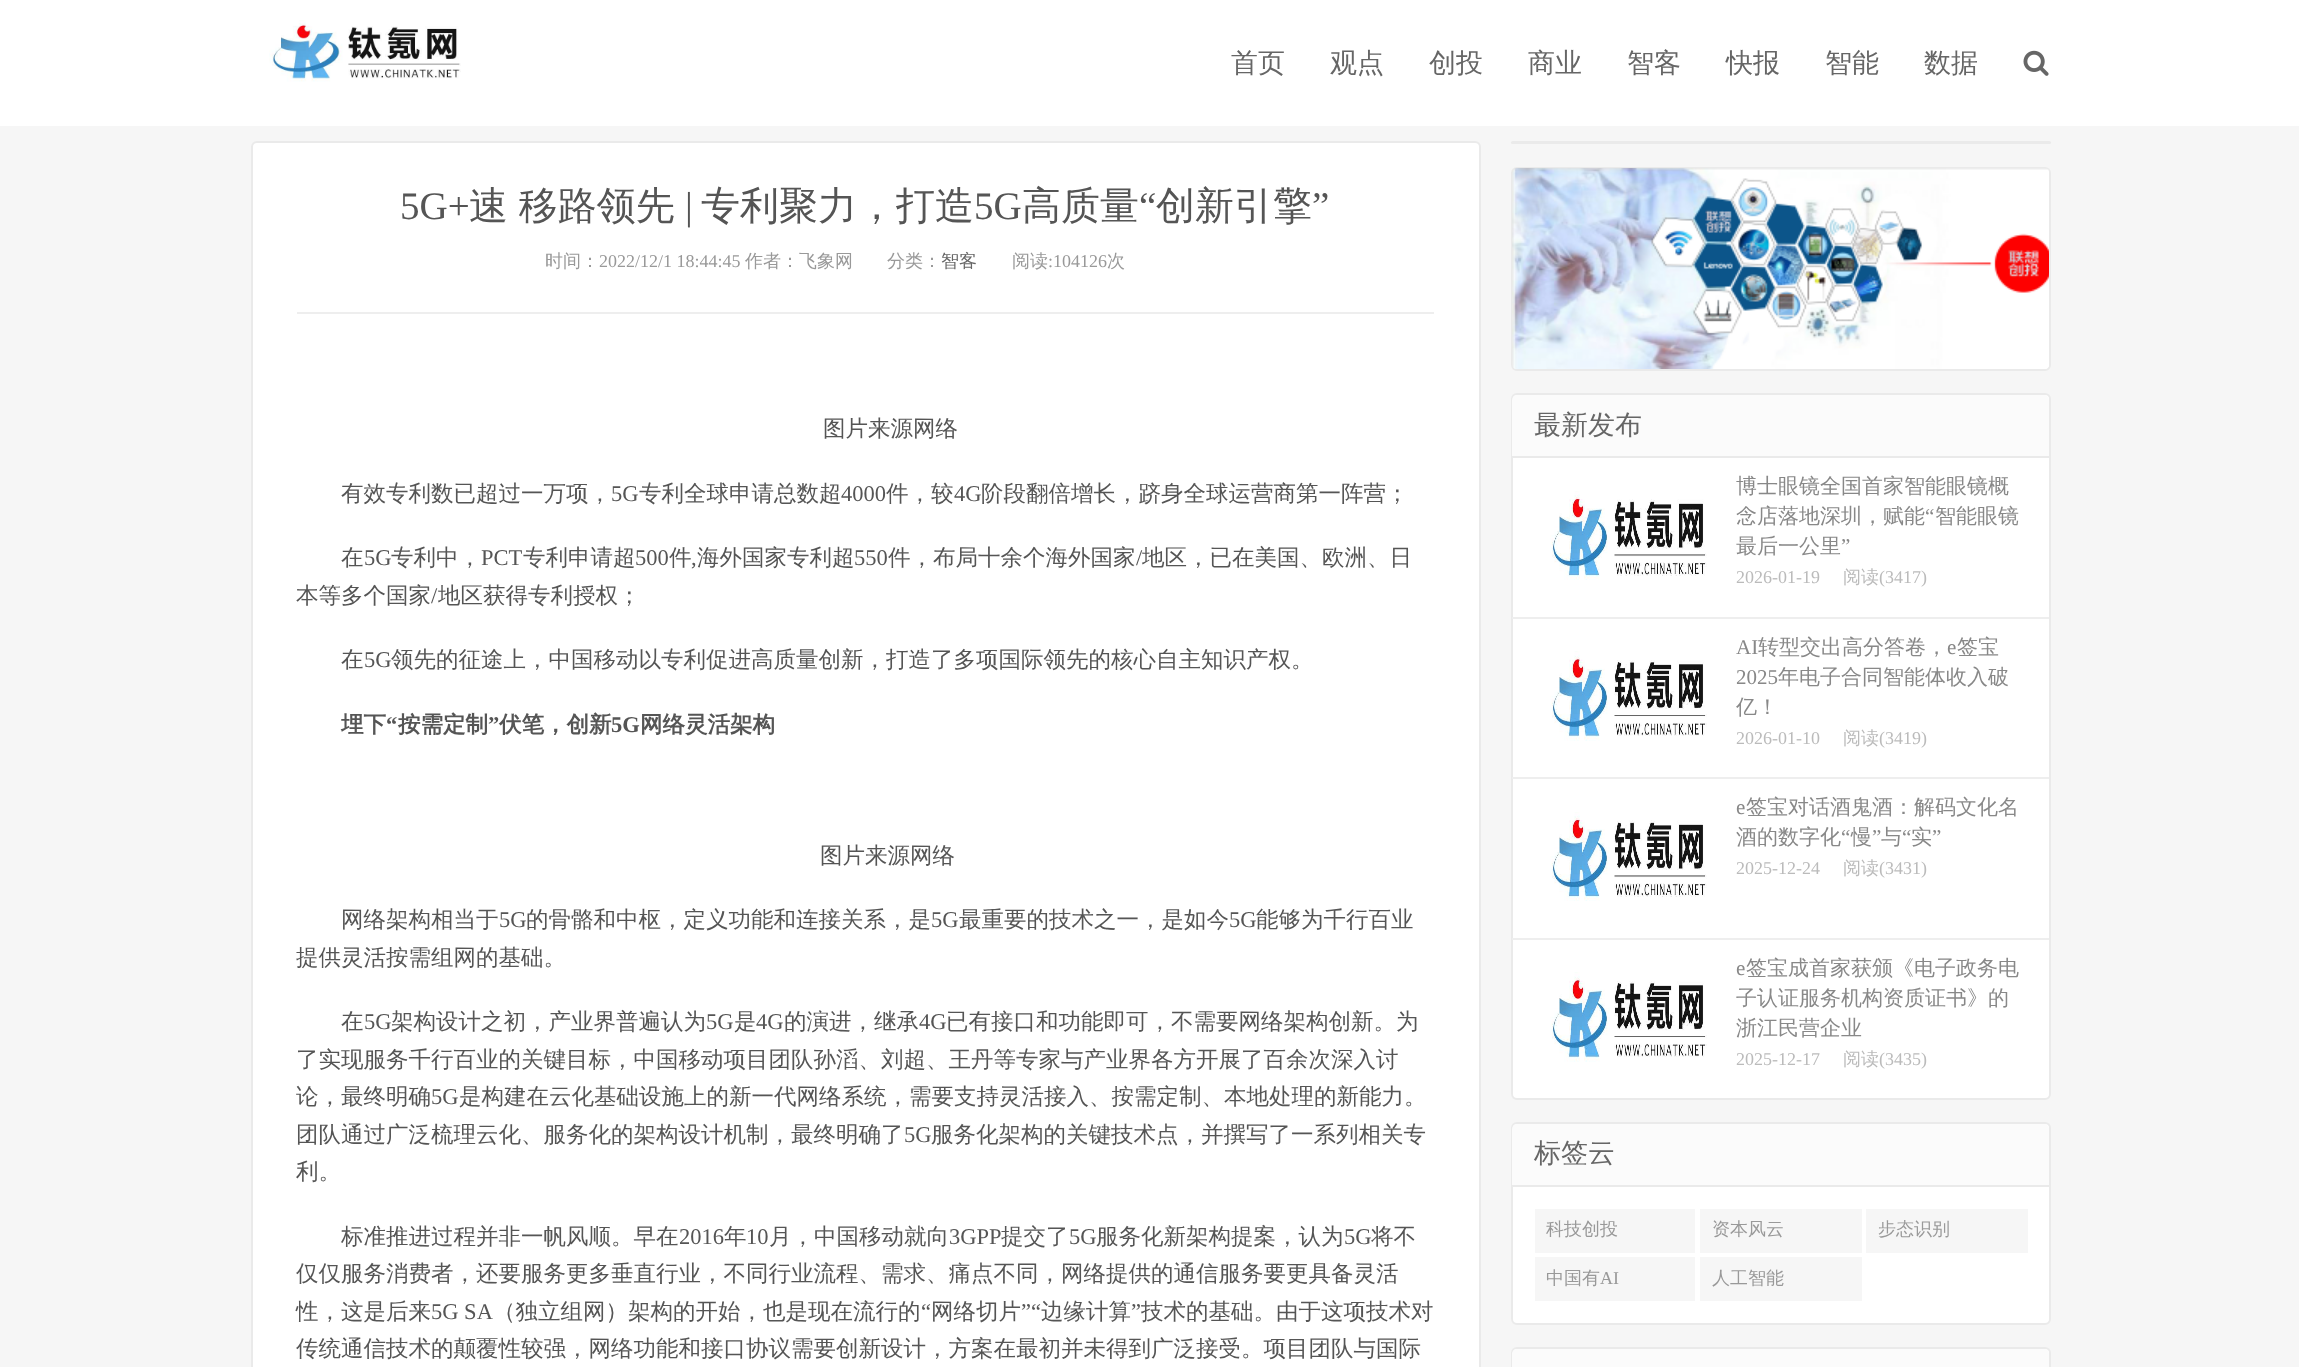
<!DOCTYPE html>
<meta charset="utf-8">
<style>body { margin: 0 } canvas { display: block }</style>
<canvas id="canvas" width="2299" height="1367"></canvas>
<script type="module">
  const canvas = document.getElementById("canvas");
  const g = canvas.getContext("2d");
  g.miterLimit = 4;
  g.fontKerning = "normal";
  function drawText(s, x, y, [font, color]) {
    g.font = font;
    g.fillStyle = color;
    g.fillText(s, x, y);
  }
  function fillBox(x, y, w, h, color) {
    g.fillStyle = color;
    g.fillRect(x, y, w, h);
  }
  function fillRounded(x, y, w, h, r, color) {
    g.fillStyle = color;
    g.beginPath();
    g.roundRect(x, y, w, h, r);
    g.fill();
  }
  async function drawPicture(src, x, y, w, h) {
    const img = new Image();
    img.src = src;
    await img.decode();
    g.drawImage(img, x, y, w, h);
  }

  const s1 = ["500 27px WenQuanYi Zen Hei", "#666666"];
  const s2 = ["39px Liberation Serif", "#555555"];
  const s3 = ["500 39px WenQuanYi Zen Hei", "#555555"];
  const s4 = ["500 18px WenQuanYi Zen Hei", "#999999"];
  const s5 = ["18px Liberation Serif", "#999999"];
  const s6 = ["500 18px WenQuanYi Zen Hei", "#666666"];
  const s7 = ["500 22.5px WenQuanYi Zen Hei", "#555555"];
  const s8 = ["22.5px Liberation Serif", "#555555"];
  const s9 = ["bold 22.5px WenQuanYi Zen Hei", "#555555"];
  const s10 = ["bold 22.5px Liberation Serif", "#555555"];
  const s11 = ["500 21px WenQuanYi Zen Hei", "#888888"];
  const s12 = ["21px Liberation Serif", "#888888"];
  const s13 = ["18px Liberation Serif", "#BBBBBB"];
  const s14 = ["500 18px WenQuanYi Zen Hei", "#BBBBBB"];

  fillBox(0, 0, 2299, 1367, "#F6F6F6");
  fillBox(0, 0, 2299, 126, "#FFFFFF");
  await drawPicture("pic1.png", 269, 20, 192, 62);
  drawText("首页", 1231, 72, s1);
  drawText("观点", 1330, 72, s1);
  drawText("创投", 1429, 72, s1);
  drawText("商业", 1528, 72, s1);
  drawText("智客", 1627, 72, s1);
  drawText("快报", 1726, 72, s1);
  drawText("智能", 1825, 72, s1);
  drawText("数据", 1924, 72, s1);
  await drawPicture("pic2.png", 2023, 50, 26, 26);
  g.fillStyle = "#FFFFFF";
  g.beginPath();
  g.roundRect(252, 142, 1228, 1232, 5);
  g.fill();
  g.strokeStyle = "#EAEAEA";
  g.lineWidth = 2;
  g.stroke();
  fillBox(297, 312, 1137, 2, "#EEEEEE");
  drawText("5G+", 400, 219, s2);
  g.wordSpacing = "-1px";
  drawText("速 移路领先", 469, 219, s3);
  g.wordSpacing = "0px";
  drawText("|", 685, 219, s2);
  drawText("专利聚力，打造", 701, 219, s3);
  drawText("5G", 974, 219, s2);
  drawText("高质量", 1022, 219, s3);
  drawText("“", 1139, 219, s2);
  drawText("创新引擎", 1156, 219, s3);
  drawText("”", 1312, 219, s2);
  drawText("时间：", 545, 267, s4);
  drawText("2022/12/1 18:44:45", 599, 267, s5);
  drawText("作者：飞象网", 745, 267, s4);
  drawText("分类：", 887, 267, s4);
  drawText("智客", 941, 267, s6);
  drawText("阅读", 1012, 267, s4);
  drawText(":104126", 1048, 267, s5);
  drawText("次", 1107, 267, s4);
  drawText("图片来源网络", 823, 436, s7);
  drawText("有效专利数已超过一万项，", 341, 501, s7);
  drawText("5G", 611, 501, s8);
  drawText("专利全球申请总数超", 639, 501, s7);
  drawText("4000", 841, 501, s8);
  drawText("件，较", 886, 501, s7);
  drawText("4G", 954, 501, s8);
  drawText("阶段翻倍增长，跻身全球运营商第一阵营；", 981, 501, s7);
  drawText("在", 341, 565, s7);
  drawText("5G", 364, 565, s8);
  drawText("专利中，", 391, 565, s7);
  drawText("PCT", 481, 565, s8);
  drawText("专利申请超", 523, 565, s7);
  drawText("500", 635, 565, s8);
  drawText("件", 669, 565, s7);
  drawText(",", 691, 565, s8);
  drawText("海外国家专利超", 697, 565, s7);
  drawText("550", 854, 565, s8);
  drawText("件，布局十余个海外国家", 888, 565, s7);
  drawText("/", 1136, 565, s8);
  drawText("地区，已在美国、欧洲、日", 1142, 565, s7);
  drawText("本等多个国家", 296, 603, s7);
  drawText("/", 431, 603, s8);
  drawText("地区获得专利授权；", 438, 603, s7);
  drawText("在", 341, 667, s7);
  drawText("5G", 364, 667, s8);
  drawText("领先的征途上，中国移动以专利促进高质量创新，打造了多项国际领先的核心自主知识产权。", 391, 667, s7);
  drawText("埋下", 341, 732, s9);
  drawText("“", 386, 732, s10);
  drawText("按需定制", 398, 732, s9);
  drawText("”", 488, 732, s10);
  drawText("伏笔，创新", 499, 732, s9);
  drawText("5G", 611, 732, s10);
  drawText("网络灵活架构", 640, 732, s9);
  drawText("图片来源网络", 820, 863, s7);
  drawText("网络架构相当于", 341, 927, s7);
  drawText("5G", 499, 927, s8);
  drawText("的骨骼和中枢，定义功能和连接关系，是", 526, 927, s7);
  drawText("5G", 931, 927, s8);
  drawText("最重要的技术之一，是如今", 959, 927, s7);
  drawText("5G", 1229, 927, s8);
  drawText("能够为千行百业", 1256, 927, s7);
  drawText("提供灵活按需组网的基础。", 296, 965, s7);
  drawText("在", 341, 1029, s7);
  drawText("5G", 364, 1029, s8);
  drawText("架构设计之初，产业界普遍认为", 391, 1029, s7);
  drawText("5G", 706, 1029, s8);
  drawText("是", 734, 1029, s7);
  drawText("4G", 756, 1029, s8);
  drawText("的演进，继承", 784, 1029, s7);
  drawText("4G", 919, 1029, s8);
  drawText("已有接口和功能即可，不需要网络架构创新。为", 946, 1029, s7);
  drawText("了实现服务千行百业的关键目标，中国移动项目团队孙滔、刘超、王丹等专家与产业界各方开展了百余次深入讨", 296, 1067, s7);
  drawText("论，最终明确", 296, 1104, s7);
  drawText("5G", 431, 1104, s8);
  drawText("是构建在云化基础设施上的新一代网络系统，需要支持灵活接入、按需定制、本地处理的新能力。", 459, 1104, s7);
  drawText("团队通过广泛梳理云化、服务化的架构设计机制，最终明确了", 296, 1142, s7);
  drawText("5G", 904, 1142, s8);
  drawText("服务化架构的关键技术点，并撰写了一系列相关专", 931, 1142, s7);
  drawText("利。", 296, 1179, s7);
  drawText("标准推进过程并非一帆风顺。早在", 341, 1244, s7);
  drawText("2016", 679, 1244, s8);
  drawText("年", 724, 1244, s7);
  drawText("10", 746, 1244, s8);
  drawText("月，中国移动就向", 769, 1244, s7);
  drawText("3GPP", 949, 1244, s8);
  drawText("提交了", 1001, 1244, s7);
  drawText("5G", 1069, 1244, s8);
  drawText("服务化新架构提案，认为", 1096, 1244, s7);
  drawText("5G", 1344, 1244, s8);
  drawText("将不", 1371, 1244, s7);
  drawText("仅仅服务消费者，还要服务更多垂直行业，不同行业流程、需求、痛点不同，网络提供的通信服务要更具备灵活", 296, 1281, s7);
  drawText("性，这是后来", 296, 1319, s7);
  drawText("5G SA", 431, 1319, s8);
  drawText("（独立组网）架构的开始，也是现在流行的", 493, 1319, s7);
  drawText("“", 921, 1319, s8);
  drawText("网络切片", 931, 1319, s7);
  drawText("”“", 1021, 1319, s8);
  drawText("边缘计算", 1041, 1319, s7);
  drawText("”", 1131, 1319, s8);
  drawText("技术的基础。由于这项技术对", 1141, 1319, s7);
  drawText("传统通信技术的颠覆性较强，网络功能和接口协议需要创新设计，方案在最初并未得到广泛接受。项目团队与国际", 296, 1356, s7);
  fillRounded(1511, 141, 540, 3, 1.5, "#EAEAEA");
  g.fillStyle = "#FFFFFF";
  g.beginPath();
  g.roundRect(1512, 168, 538, 202, 5);
  g.fill();
  g.stroke();
  await drawPicture("pic3.png", 1512, 168, 537, 201);
  g.beginPath();
  g.roundRect(1512, 394, 538, 705, 5);
  g.fill();
  g.stroke();
  g.fillStyle = "#FBFBFB";
  g.beginPath();
  g.roundRect(1512, 395, 537, 63, [5, 5, 0, 0]);
  g.fill();
  fillBox(1512, 456, 537, 2, "#EAEAEA");
  drawText("最新发布", 1534, 434, s1);
  fillBox(1512, 617, 537, 2, "#EEEEEE");
  await drawPicture("pic4.png", 1550, 491, 157, 89);
  drawText("博士眼镜全国首家智能眼镜概", 1736, 493, s11);
  drawText("念店落地深圳，赋能", 1736, 523, s11);
  drawText("“", 1925, 523, s12);
  drawText("智能眼镜", 1935, 523, s11);
  drawText("最后一公里", 1736, 553, s11);
  drawText("”", 1841, 553, s12);
  drawText("2026-01-19", 1736, 583, s13);
  drawText("阅读", 1843, 583, s14);
  drawText("(3417)", 1879, 583, s13);
  fillBox(1512, 777, 537, 2, "#EEEEEE");
  await drawPicture("pic5.png", 1550, 651, 157, 90);
  drawText("AI", 1736, 654, s12);
  drawText("转型交出高分答卷，", 1758, 654, s11);
  drawText("e", 1947, 654, s12);
  drawText("签宝", 1957, 654, s11);
  drawText("2025", 1736, 684, s12);
  drawText("年电子合同智能体收入破", 1778, 684, s11);
  drawText("亿！", 1736, 714, s11);
  drawText("2026-01-10", 1736, 744, s13);
  drawText("阅读", 1843, 744, s14);
  drawText("(3419)", 1879, 744, s13);
  fillBox(1512, 938, 537, 2, "#EEEEEE");
  await drawPicture("pic4.png", 1550, 812, 157, 89);
  drawText("e", 1736, 814, s12);
  drawText("签宝对话酒鬼酒：解码文化名", 1746, 814, s11);
  drawText("酒的数字化", 1736, 844, s11);
  drawText("“", 1841, 844, s12);
  drawText("慢", 1851, 844, s11);
  drawText("”", 1872, 844, s12);
  drawText("与", 1881, 844, s11);
  drawText("“", 1902, 844, s12);
  drawText("实", 1911, 844, s11);
  drawText("”", 1932, 844, s12);
  drawText("2025-12-24", 1736, 874, s13);
  drawText("阅读", 1843, 874, s14);
  drawText("(3431)", 1879, 874, s13);
  await drawPicture("pic5.png", 1550, 972, 157, 90);
  drawText("e", 1736, 975, s12);
  drawText("签宝成首家获颁《电子政务电", 1746, 975, s11);
  drawText("子认证服务机构资质证书》的", 1736, 1005, s11);
  drawText("浙江民营企业", 1736, 1035, s11);
  drawText("2025-12-17", 1736, 1065, s13);
  drawText("阅读", 1843, 1065, s14);
  drawText("(3435)", 1879, 1065, s13);
  g.fillStyle = "#FFFFFF";
  g.beginPath();
  g.roundRect(1512, 1123, 538, 201, 5);
  g.fill();
  g.stroke();
  g.fillStyle = "#FBFBFB";
  g.beginPath();
  g.roundRect(1512, 1124, 537, 63, [5, 5, 0, 0]);
  g.fill();
  fillBox(1512, 1185, 537, 2, "#EAEAEA");
  drawText("标签云", 1534, 1162, s1);
  fillBox(1535, 1209, 160, 44, "#F6F6F6");
  drawText("科技创投", 1546, 1235, s4);
  fillBox(1700, 1209, 162, 44, "#F6F6F6");
  drawText("资本风云", 1712, 1235, s4);
  fillBox(1866, 1209, 162, 44, "#F6F6F6");
  drawText("步态识别", 1878, 1235, s4);
  fillBox(1535, 1257, 160, 44, "#F6F6F6");
  drawText("中国有", 1546, 1284, s4);
  drawText("AI", 1600, 1284, s5);
  fillBox(1700, 1257, 162, 44, "#F6F6F6");
  drawText("人工智能", 1712, 1284, s4);
  g.fillStyle = "#FFFFFF";
  g.beginPath();
  g.roundRect(1512, 1348, 538, 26, 5);
  g.fill();
  g.stroke();
  g.fillStyle = "#FBFBFB";
  g.beginPath();
  g.moveTo(1517, 1349);
  g.lineTo(2044, 1349);
  g.bezierCurveTo(2047, 1349, 2049, 1351, 2049, 1354);
  g.lineTo(2049, 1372);
  g.lineTo(1512, 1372);
  g.lineTo(1512, 1354);
  g.bezierCurveTo(1512, 1351, 1514, 1349, 1517, 1349);
  g.closePath();
  g.fill();
</script>
